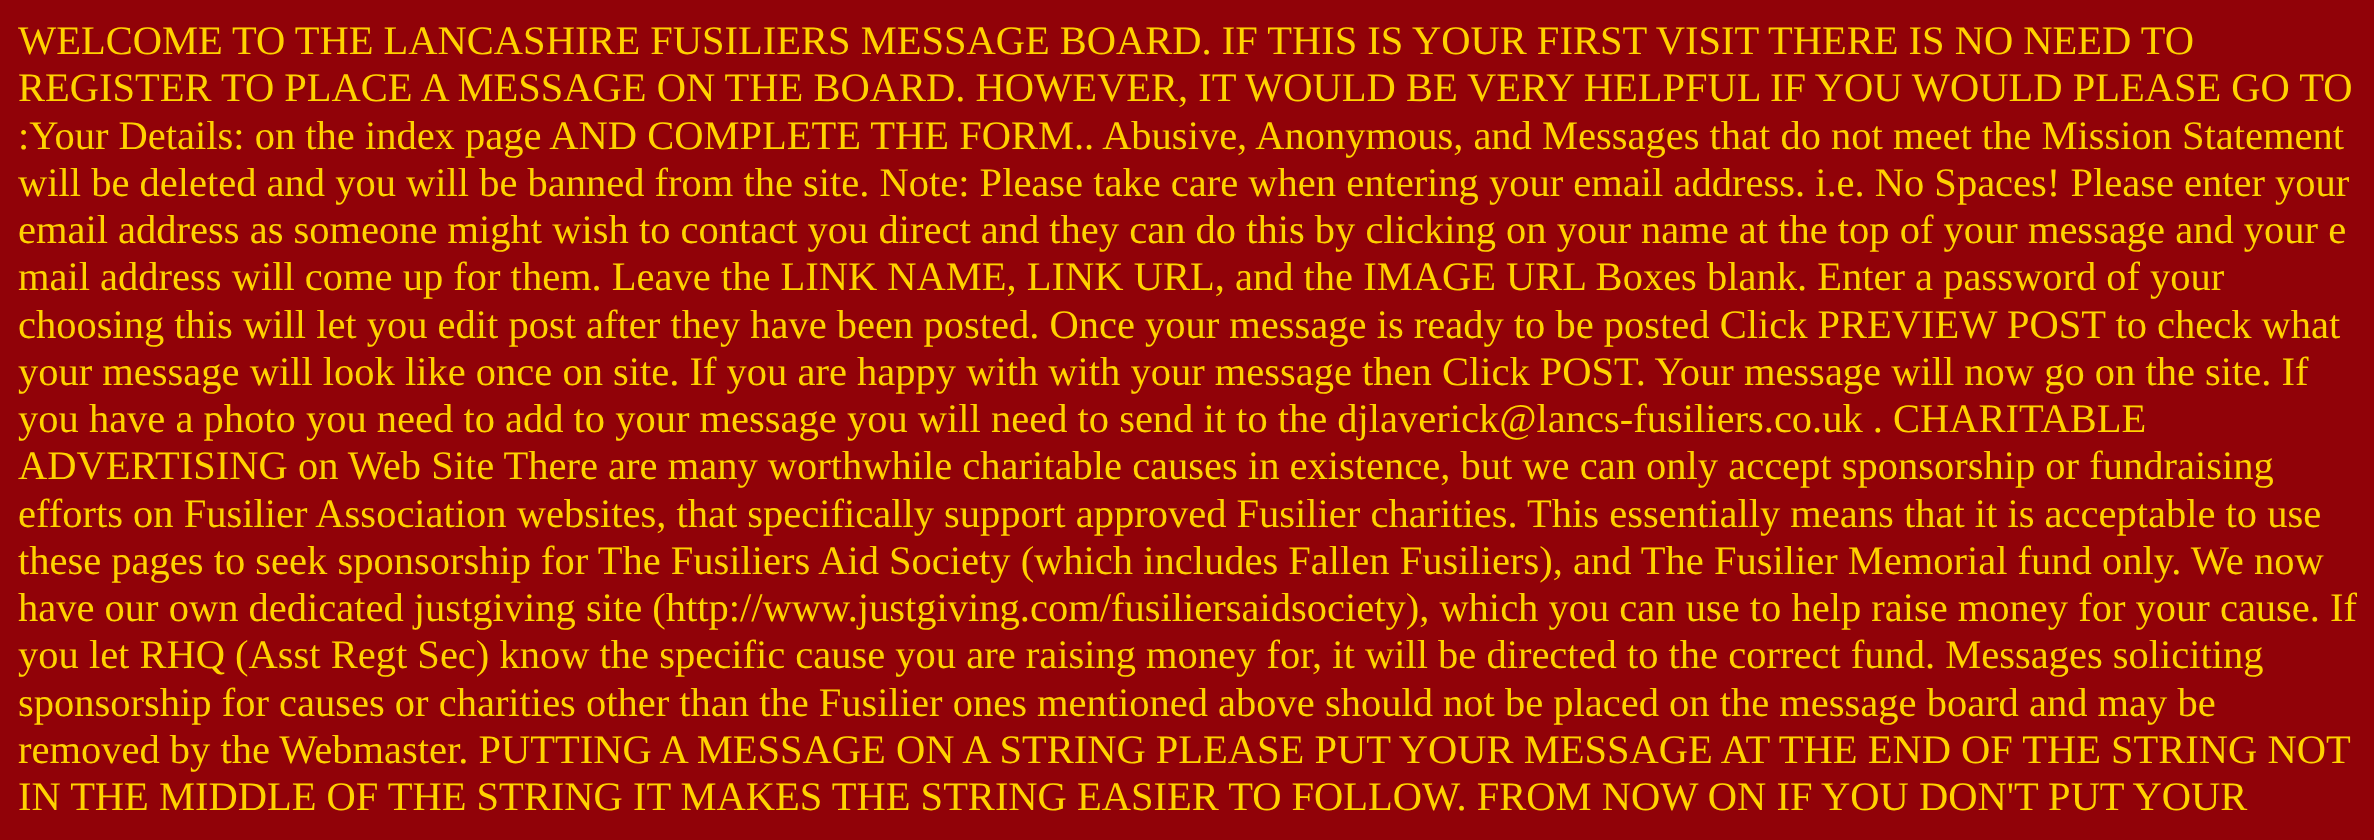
<!DOCTYPE html>
<meta charset="utf-8">
<style>body { margin: 0 } canvas { display: block }</style>
<canvas id="canvas" width="2374" height="840"></canvas>
<script type="module">
  const canvas = document.getElementById("canvas");
  const g = canvas.getContext("2d");
  g.miterLimit = 4;
  g.fontKerning = "normal";
  function drawText(s, x, y, [font, color]) {
    g.font = font;
    g.fillStyle = color;
    g.fillText(s, x, y);
  }
  function fillBox(x, y, w, h, color) {
    g.fillStyle = color;
    g.fillRect(x, y, w, h);
  }

  const s1 = ["40.5px Liberation Serif", "#FFD200"];

  fillBox(0, 0, 2374, 840, "#910208");
  drawText("WELCOME TO THE LANCASHIRE FUSILIERS MESSAGE BOARD. IF THIS IS YOUR FIRST VISIT THERE IS NO NEED TO", 18, 54, s1);
  drawText("REGISTER TO PLACE A MESSAGE ON THE BOARD. HOWEVER, IT WOULD BE VERY HELPFUL IF YOU WOULD PLEASE GO TO", 18, 101, s1);
  drawText(":Your Details: on the index page AND COMPLETE THE FORM.. Abusive, Anonymous, and Messages that do not meet the Mission Statement", 18, 149, s1);
  drawText("will be deleted and you will be banned from the site. Note: Please take care when entering your email address. i.e. No Spaces! Please enter your", 18, 196, s1);
  drawText("email address as someone might wish to contact you direct and they can do this by clicking on your name at the top of your message and your e", 18, 243, s1);
  drawText("mail address will come up for them. Leave the LINK NAME, LINK URL, and the IMAGE URL Boxes blank. Enter a password of your", 18, 290, s1);
  drawText("choosing this will let you edit post after they have been posted. Once your message is ready to be posted Click PREVIEW POST to check what", 18, 338, s1);
  drawText("your message will look like once on site. If you are happy with with your message then Click POST. Your message will now go on the site. If", 18, 385, s1);
  drawText("you have a photo you need to add to your message you will need to send it to the djlaverick@lancs-fusiliers.co.uk . CHARITABLE", 18, 432, s1);
  drawText("ADVERTISING on Web Site There are many worthwhile charitable causes in existence, but we can only accept sponsorship or fundraising", 18, 479, s1);
  drawText("efforts on Fusilier Association websites, that specifically support approved Fusilier charities. This essentially means that it is acceptable to use", 18, 527, s1);
  drawText("these pages to seek sponsorship for The Fusiliers Aid Society (which includes Fallen Fusiliers), and The Fusilier Memorial fund only. We now", 18, 574, s1);
  drawText("have our own dedicated justgiving site (http://www.justgiving.com/fusiliersaidsociety), which you can use to help raise money for your cause. If", 18, 621, s1);
  drawText("you let RHQ (Asst Regt Sec) know the specific cause you are raising money for, it will be directed to the correct fund. Messages soliciting", 18, 668, s1);
  drawText("sponsorship for causes or charities other than the Fusilier ones mentioned above should not be placed on the message board and may be", 18, 716, s1);
  drawText("removed by the Webmaster. PUTTING A MESSAGE ON A STRING PLEASE PUT YOUR MESSAGE AT THE END OF THE STRING NOT", 18, 763, s1);
  drawText("IN THE MIDDLE OF THE STRING IT MAKES THE STRING EASIER TO FOLLOW. FROM NOW ON IF YOU DON'T PUT YOUR", 18, 810, s1);
</script>
